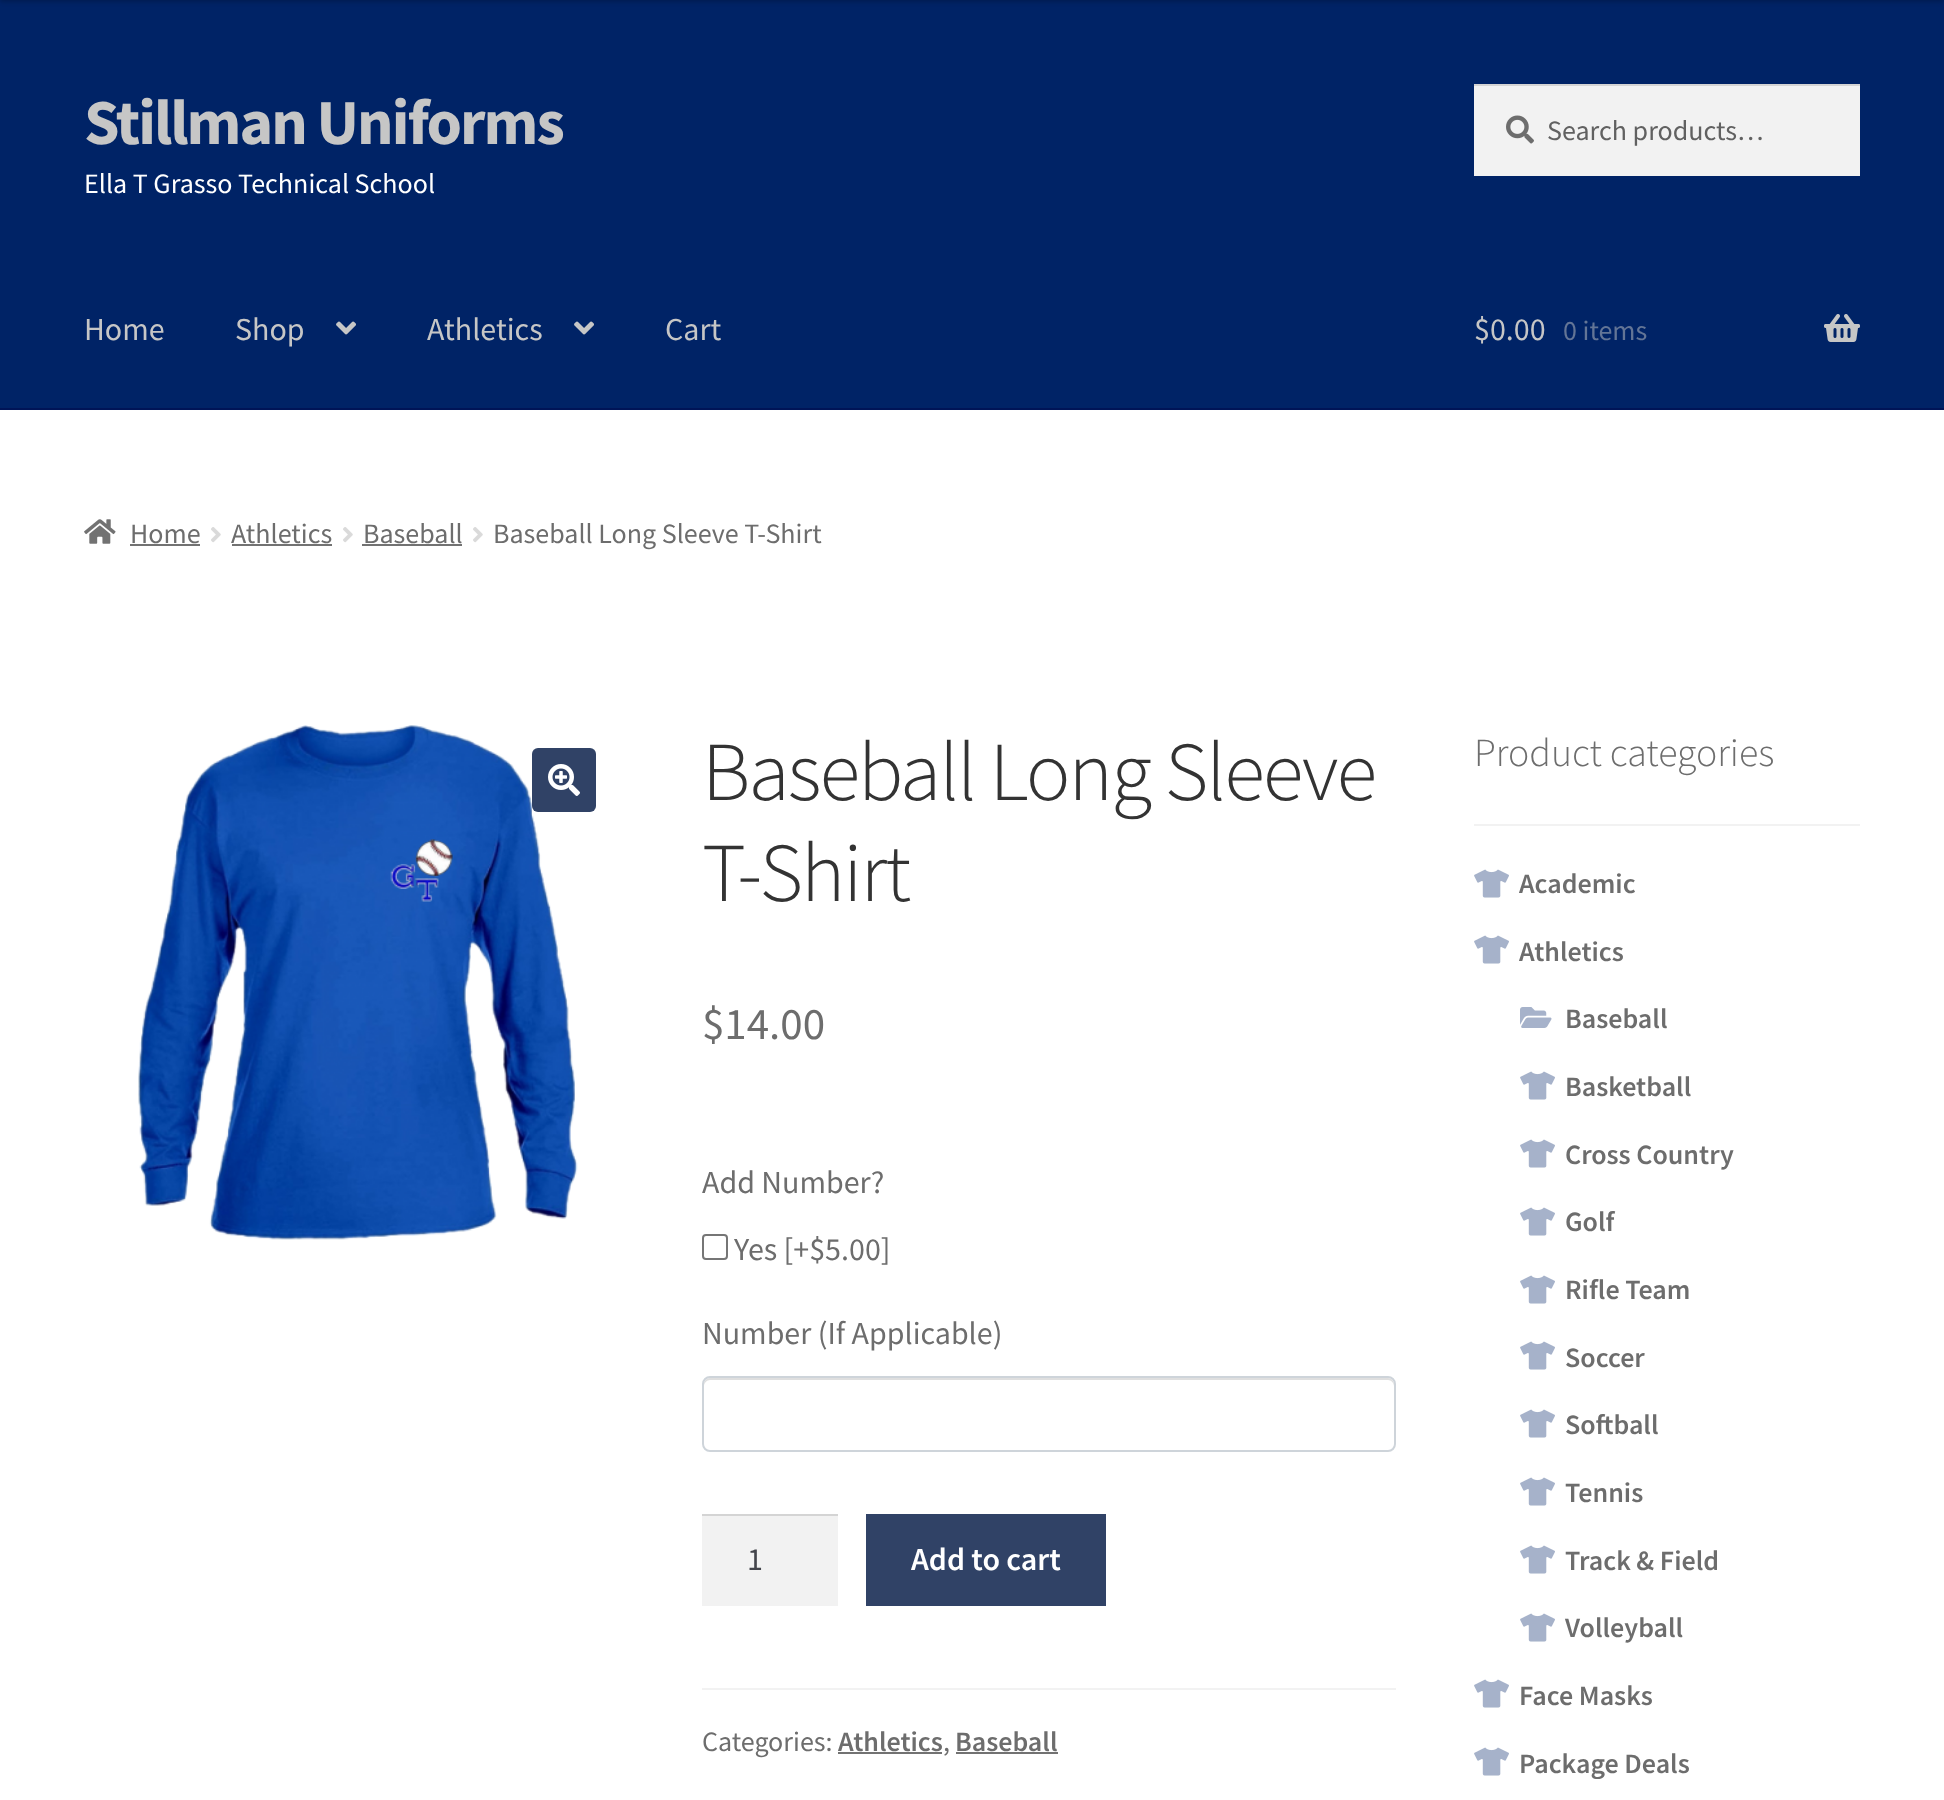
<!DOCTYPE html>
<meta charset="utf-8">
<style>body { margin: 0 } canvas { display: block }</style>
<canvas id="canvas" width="1944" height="1800"></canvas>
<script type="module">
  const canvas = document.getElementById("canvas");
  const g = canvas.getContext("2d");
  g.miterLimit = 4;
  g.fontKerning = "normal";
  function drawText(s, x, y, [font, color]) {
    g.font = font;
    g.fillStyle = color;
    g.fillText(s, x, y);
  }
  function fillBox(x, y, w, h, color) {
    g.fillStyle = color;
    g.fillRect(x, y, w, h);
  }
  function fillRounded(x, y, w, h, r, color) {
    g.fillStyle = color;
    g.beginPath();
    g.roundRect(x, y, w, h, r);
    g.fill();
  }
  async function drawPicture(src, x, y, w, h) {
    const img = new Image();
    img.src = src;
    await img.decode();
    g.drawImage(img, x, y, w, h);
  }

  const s1 = ["bold 64px Source Sans Pro", "#C6C6C6"];
  const s2 = ["28px Source Sans Pro", "#FFFFFF"];
  const s3 = ["28px Source Sans Pro", "#616161"];
  const s4 = ["32px Source Sans Pro", "#C6C6C6"];
  const s5 = ["28px Source Sans Pro", "#637596"];
  const s6 = ["28px Source Sans Pro", "#6D6D6D"];
  const s7 = ["300 83.75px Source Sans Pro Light", "#333333"];
  const s8 = ["45px Source Sans Pro", "#6D6D6D"];
  const s9 = ["32px Source Sans Pro", "#6D6D6D"];
  const s10 = ["32px Source Sans Pro", "#43454B"];
  const s11 = ["600 32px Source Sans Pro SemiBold", "#FFFFFF"];
  const s12 = ["600 28px Source Sans Pro SemiBold", "#6D6D6D"];
  const s13 = ["300 39.75px Source Sans Pro Light", "#6D6D6D"];

  fillBox(0, 0, 1944, 1800, "#FFFFFF");
  fillBox(0, 0, 1944, 408, "#002366");
  g.fillStyle = "rgba(0, 0, 0, 0.2)";
  g.filter = "blur(2px)";
  g.beginPath();
  g.rect(0, -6, 1944, 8);
  g.fill();
  g.filter = "none";
  fillBox(0, 408, 1944, 2, "#001457");
  g.letterSpacing = "-2px";
  drawText("Stillman Uniforms", 84, 144, s1);
  g.letterSpacing = "0px";
  drawText("Ella T Grasso Technical School", 84, 193, s2);
  fillBox(1474, 86, 386, 90, "#F2F2F2");
  await drawPicture("pic1.png", 1506, 115, 28, 29);
  fillBox(1474, 84, 386, 2, "#D4D4D4");
  drawText("Search products…", 1547, 140, s3);
  drawText("Home", 84, 340, s4);
  drawText("Shop", 235, 340, s4);
  await drawPicture("pic2.png", 336, 321, 20, 14);
  drawText("Athletics", 427, 340, s4);
  await drawPicture("pic2.png", 574, 321, 20, 14);
  drawText("Cart", 665, 340, s4);
  drawText("$0.00", 1474, 340, s4);
  drawText("0 items", 1563, 340, s5);
  await drawPicture("pic3.png", 1824, 314, 36, 28);
  await drawPicture("pic4.png", 84, 519, 32, 25);
  drawText("Home", 130, 543, s6);
  fillBox(130, 544, 70, 2, "#727272");
  await drawPicture("pic5.png", 211, 527, 10, 16);
  drawText("Athletics", 231, 543, s6);
  fillBox(232, 544, 100, 2, "#727272");
  await drawPicture("pic5.png", 343, 527, 10, 16);
  drawText("Baseball", 363, 543, s6);
  fillBox(362, 544, 100, 2, "#727272");
  await drawPicture("pic5.png", 473, 527, 10, 16);
  drawText("Baseball Long Sleeve T-Shirt", 493, 543, s6);
  await drawPicture("pic6.png", 138, 725, 440, 515);
  fillRounded(532, 748, 64, 64, 6, "#304266");
  await drawPicture("pic7.png", 548, 764, 32, 32);
  g.letterSpacing = "-2px";
  drawText("Baseball Long Sleeve", 702, 800, s7);
  drawText("T-Shirt", 702, 901, s7);
  g.letterSpacing = "0px";
  drawText("$14.00", 702, 1039, s8);
  drawText("Add Number?", 702, 1193, s9);
  g.beginPath();
  g.roundRect(703, 1235, 24, 24, 3);
  g.strokeStyle = "#767676";
  g.lineWidth = 2;
  g.stroke();
  drawText("Yes [+$5.00]", 734, 1260, s9);
  drawText("Number (If Applicable)", 702, 1344, s9);
  g.fillStyle = "#DFDFDF";
  g.beginPath();
  g.moveTo(710, 1380);
  g.lineTo(1388, 1380);
  g.bezierCurveTo(1391, 1380, 1394, 1383, 1394, 1386);
  g.lineTo(1394, 1384);
  g.bezierCurveTo(1394, 1381, 1391, 1378, 1388, 1378);
  g.lineTo(710, 1378);
  g.bezierCurveTo(707, 1378, 704, 1381, 704, 1384);
  g.lineTo(704, 1386);
  g.bezierCurveTo(704, 1383, 707, 1380, 710, 1380);
  g.closePath();
  g.fill();
  g.beginPath();
  g.roundRect(703, 1377, 692, 74, 7);
  g.strokeStyle = "#CED4DA";
  g.stroke();
  fillBox(702, 1516, 136, 90, "#F2F2F2");
  fillBox(702, 1514, 136, 2, "#D4D4D4");
  drawText("1", 747, 1570, s10);
  fillBox(866, 1514, 240, 92, "#304266");
  drawText("Add to cart", 911, 1570, s11);
  fillBox(702, 1688, 694, 2, "#F2F2F2");
  drawText("Categories:", 702, 1751, s6);
  drawText("Athletics", 838, 1751, s12);
  fillBox(838, 1752, 104, 2, "#727272");
  drawText(",", 943, 1751, s6);
  drawText("Baseball", 955, 1751, s12);
  fillBox(956, 1752, 102, 2, "#727272");
  fillBox(1474, 824, 386, 2, "#F2F2F2");
  drawText("Product categories", 1474, 766, s13);
  await drawPicture("pic8.png", 1474, 869, 35, 29);
  drawText("Academic", 1519, 893, s12);
  await drawPicture("pic8.png", 1474, 935, 35, 29);
  drawText("Athletics", 1519, 961, s12);
  await drawPicture("pic9.png", 1520, 1007, 32, 21);
  drawText("Baseball", 1565, 1028, s12);
  await drawPicture("pic8.png", 1520, 1071, 35, 29);
  drawText("Basketball", 1565, 1096, s12);
  await drawPicture("pic8.png", 1520, 1139, 35, 29);
  drawText("Cross Country", 1565, 1164, s12);
  await drawPicture("pic8.png", 1520, 1207, 35, 29);
  drawText("Golf", 1565, 1231, s12);
  await drawPicture("pic8.png", 1520, 1275, 35, 29);
  drawText("Rifle Team", 1565, 1299, s12);
  await drawPicture("pic8.png", 1520, 1341, 35, 29);
  drawText("Soccer", 1565, 1367, s12);
  await drawPicture("pic8.png", 1520, 1409, 35, 29);
  drawText("Softball", 1565, 1434, s12);
  await drawPicture("pic8.png", 1520, 1477, 35, 29);
  drawText("Tennis", 1565, 1502, s12);
  await drawPicture("pic8.png", 1520, 1545, 35, 29);
  drawText("Track & Field", 1565, 1570, s12);
  await drawPicture("pic8.png", 1520, 1613, 35, 29);
  drawText("Volleyball", 1565, 1637, s12);
  await drawPicture("pic8.png", 1474, 1679, 35, 29);
  drawText("Face Masks", 1519, 1705, s12);
  await drawPicture("pic8.png", 1474, 1747, 35, 29);
  drawText("Package Deals", 1519, 1773, s12);
</script>
